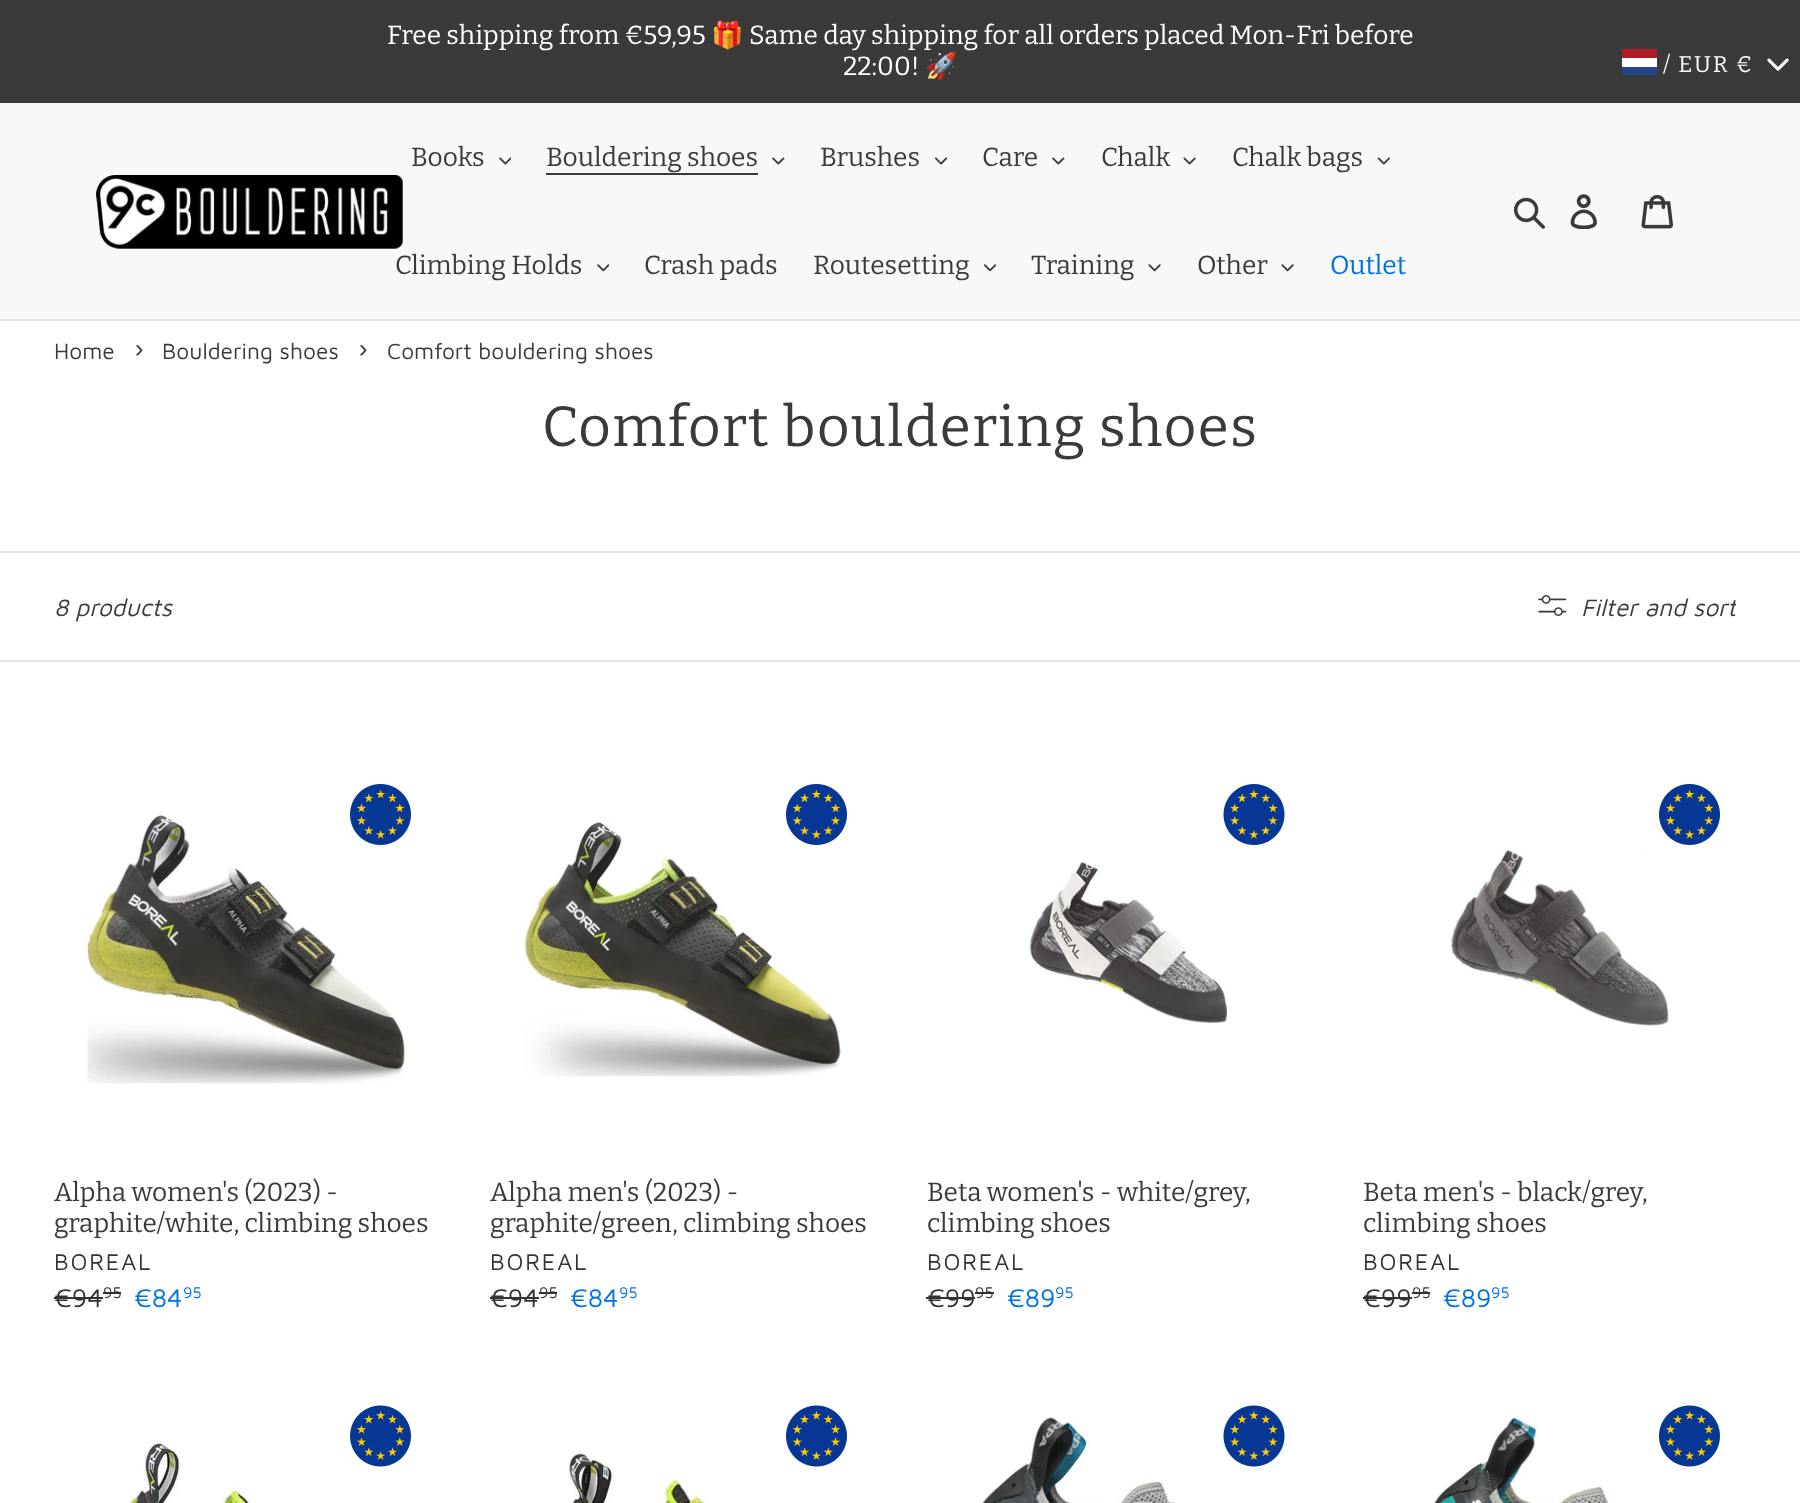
<!DOCTYPE html>
<meta charset="utf-8">
<style>body { margin: 0 } canvas { display: block }</style>
<canvas id="canvas" width="1800" height="1503"></canvas>
<script type="module">
  const canvas = document.getElementById("canvas");
  const g = canvas.getContext("2d");
  g.miterLimit = 4;
  g.fontKerning = "normal";
  function drawText(s, x, y, [font, color]) {
    g.font = font;
    g.fillStyle = color;
    g.fillText(s, x, y);
  }
  function fillBox(x, y, w, h, color) {
    g.fillStyle = color;
    g.fillRect(x, y, w, h);
  }
  async function drawPicture(src, x, y, w, h) {
    const img = new Image();
    img.src = src;
    await img.decode();
    g.drawImage(img, x, y, w, h);
  }

  const s1 = ["26.25px Bitter", "#FFFFFF"];
  const s2 = ["26.25px Noto Color Emoji", "#FFFFFF"];
  const s3 = ["22.75px Bitter", "#FFFFFF"];
  const s4 = ["26.25px Bitter", "#3A3A3A"];
  const s5 = ["26.25px Bitter", "#0071E3"];
  const s6 = ["22.75px Maven Pro", "#3A3A3A"];
  const s7 = ["26.25px Maven Pro", "#3A3A3A"];
  const s8 = ["56.5px Bitter", "#3A3A3A"];
  const s9 = ["italic 24.5px Maven Pro", "#3A3A3A"];
  const s10 = ["23.5px Maven Pro", "#323232"];
  const s11 = ["26.25px Maven Pro", "#323232"];
  const s12 = ["16px Maven Pro", "#323232"];
  const s13 = ["26.25px Maven Pro", "#0071E3"];
  const s14 = ["16px Maven Pro", "#0071E3"];

  fillBox(0, 0, 1800, 1503, "#FFFFFF");
  fillBox(0, 0, 1800, 103, "#3A3A3A");
  drawText("Free shipping from €59,95", 387, 44, s1);
  drawText("🎁", 711, 44, s2);
  drawText("Same day shipping for all orders placed Mon-Fri before", 749, 44, s1);
  drawText("22:00!", 843, 75, s1);
  drawText("🚀", 925, 75, s2);
  fillBox(1622, 49, 35, 9, "#AE1C28");
  g.letterSpacing = "1.75px";
  drawText("/ EUR €", 1663, 72, s3);
  fillBox(1622, 58, 35, 9, "#FFFFFF");
  fillBox(1622, 67, 35, 8, "#21468B");
  await drawPicture("pic1.png", 1767, 58, 22, 13);
  fillBox(0, 103, 1800, 216, "#F8F8F8");
  fillBox(0, 319, 1800, 2, "#E5E5E5");
  await drawPicture("pic2.png", 96, 175, 307, 74);
  await drawPicture("pic3.png", 96, 175, 307, 74);
  g.letterSpacing = "0px";
  drawText("Books", 411, 166, s4);
  await drawPicture("pic4.png", 499, 157, 12, 8);
  drawText("Bouldering shoes", 546, 166, s4);
  fillBox(546, 173, 212, 2, "#3A3A3A");
  await drawPicture("pic5.png", 772, 157, 13, 8);
  drawText("Brushes", 820, 166, s4);
  await drawPicture("pic6.png", 935, 157, 12, 8);
  drawText("Care", 982, 166, s4);
  await drawPicture("pic5.png", 1052, 157, 13, 8);
  drawText("Chalk", 1101, 166, s4);
  await drawPicture("pic7.png", 1183, 157, 13, 8);
  drawText("Chalk bags", 1232, 166, s4);
  await drawPicture("pic8.png", 1377, 157, 13, 8);
  drawText("Climbing Holds", 395, 274, s4);
  await drawPicture("pic9.png", 597, 264, 12, 8);
  drawText("Crash pads", 644, 274, s4);
  drawText("Routesetting", 813, 274, s4);
  await drawPicture("pic10.png", 984, 264, 12, 8);
  drawText("Training", 1031, 274, s4);
  await drawPicture("pic11.png", 1148, 264, 13, 8);
  drawText("Other", 1197, 274, s4);
  await drawPicture("pic11.png", 1281, 264, 13, 8);
  drawText("Outlet", 1330, 274, s5);
  await drawPicture("pic12.png", 1514, 197, 31, 32);
  await drawPicture("pic13.png", 1570, 194, 27, 35);
  await drawPicture("pic14.png", 1641, 194, 32, 35);
  drawText("Home", 54, 359, s6);
  drawText("›", 134, 357, s7);
  drawText("Bouldering shoes", 162, 359, s6);
  drawText("›", 358, 357, s7);
  drawText("Comfort bouldering shoes", 387, 359, s6);
  g.letterSpacing = "1.4px";
  drawText("Comfort bouldering shoes", 542, 446, s8);
  fillBox(0, 551, 1800, 2, "#E5E5E5");
  fillBox(0, 660, 1800, 2, "#E5E5E5");
  g.letterSpacing = "0px";
  drawText("8 products", 54, 616, s9);
  await drawPicture("pic15.png", 1538, 595, 29, 21);
  g.save();
  g.beginPath();
  g.rect(1580, 558, 156, 97);
  g.clip();
  drawText("Filter and sort", 1581, 616, s9);
  g.restore();
  await drawPicture("pic17.png", 84, 812, 321, 272);
  await drawPicture("pic16.png", 350, 784, 61, 61);
  drawText("Alpha women's (2023) -", 54, 1201, s4);
  drawText("graphite/white, climbing shoes", 54, 1232, s4);
  g.letterSpacing = "1.75px";
  drawText("BOREAL", 54, 1270, s10);
  g.letterSpacing = "0px";
  drawText("€94", 54, 1307, s11);
  fillBox(54, 1297, 49, 2, "#323232");
  drawText("95", 103, 1298, s12);
  fillBox(103, 1292, 18, 2, "#323232");
  drawText("€84", 134, 1307, s13);
  drawText("95", 183, 1298, s14);
  await drawPicture("pic19.png", 521, 822, 322, 255);
  await drawPicture("pic18.png", 786, 784, 61, 61);
  drawText("Alpha men's (2023) -", 490, 1201, s4);
  drawText("graphite/green, climbing shoes", 490, 1232, s4);
  g.letterSpacing = "1.75px";
  drawText("BOREAL", 490, 1270, s10);
  g.letterSpacing = "0px";
  drawText("€94", 490, 1307, s11);
  fillBox(490, 1297, 49, 2, "#323232");
  drawText("95", 539, 1298, s12);
  fillBox(539, 1292, 18, 2, "#323232");
  drawText("€84", 570, 1307, s13);
  drawText("95", 619, 1298, s14);
  await drawPicture("pic20.png", 1223, 784, 62, 61);
  await drawPicture("pic21.png", 1029, 862, 198, 175);
  drawText("Beta women's - white/grey,", 927, 1201, s4);
  drawText("climbing shoes", 927, 1232, s4);
  g.letterSpacing = "1.75px";
  drawText("BOREAL", 927, 1270, s10);
  g.letterSpacing = "0px";
  drawText("€99", 927, 1307, s11);
  fillBox(926, 1297, 49, 2, "#323232");
  drawText("95", 975, 1298, s12);
  fillBox(975, 1292, 19, 2, "#323232");
  drawText("€89", 1007, 1307, s13);
  drawText("95", 1055, 1298, s14);
  await drawPicture("pic16.png", 1659, 784, 61, 61);
  await drawPicture("pic22.png", 1450, 849, 219, 179);
  drawText("Beta men's - black/grey,", 1363, 1201, s4);
  drawText("climbing shoes", 1363, 1232, s4);
  g.letterSpacing = "1.75px";
  drawText("BOREAL", 1363, 1270, s10);
  g.letterSpacing = "0px";
  drawText("€99", 1363, 1307, s11);
  fillBox(1363, 1297, 49, 2, "#323232");
  drawText("95", 1412, 1298, s12);
  fillBox(1412, 1292, 18, 2, "#323232");
  drawText("€89", 1443, 1307, s13);
  drawText("95", 1491, 1298, s14);
  await drawPicture("pic23.png", 127, 1441, 135, 62);
  await drawPicture("pic24.png", 350, 1405, 61, 62);
  await drawPicture("pic25.png", 786, 1405, 61, 62);
  await drawPicture("pic26.png", 568, 1453, 139, 50);
  await drawPicture("pic27.png", 982, 1417, 194, 86);
  await drawPicture("pic28.png", 1223, 1405, 62, 62);
  await drawPicture("pic29.png", 1434, 1416, 175, 87);
  await drawPicture("pic24.png", 1659, 1405, 61, 62);
</script>
